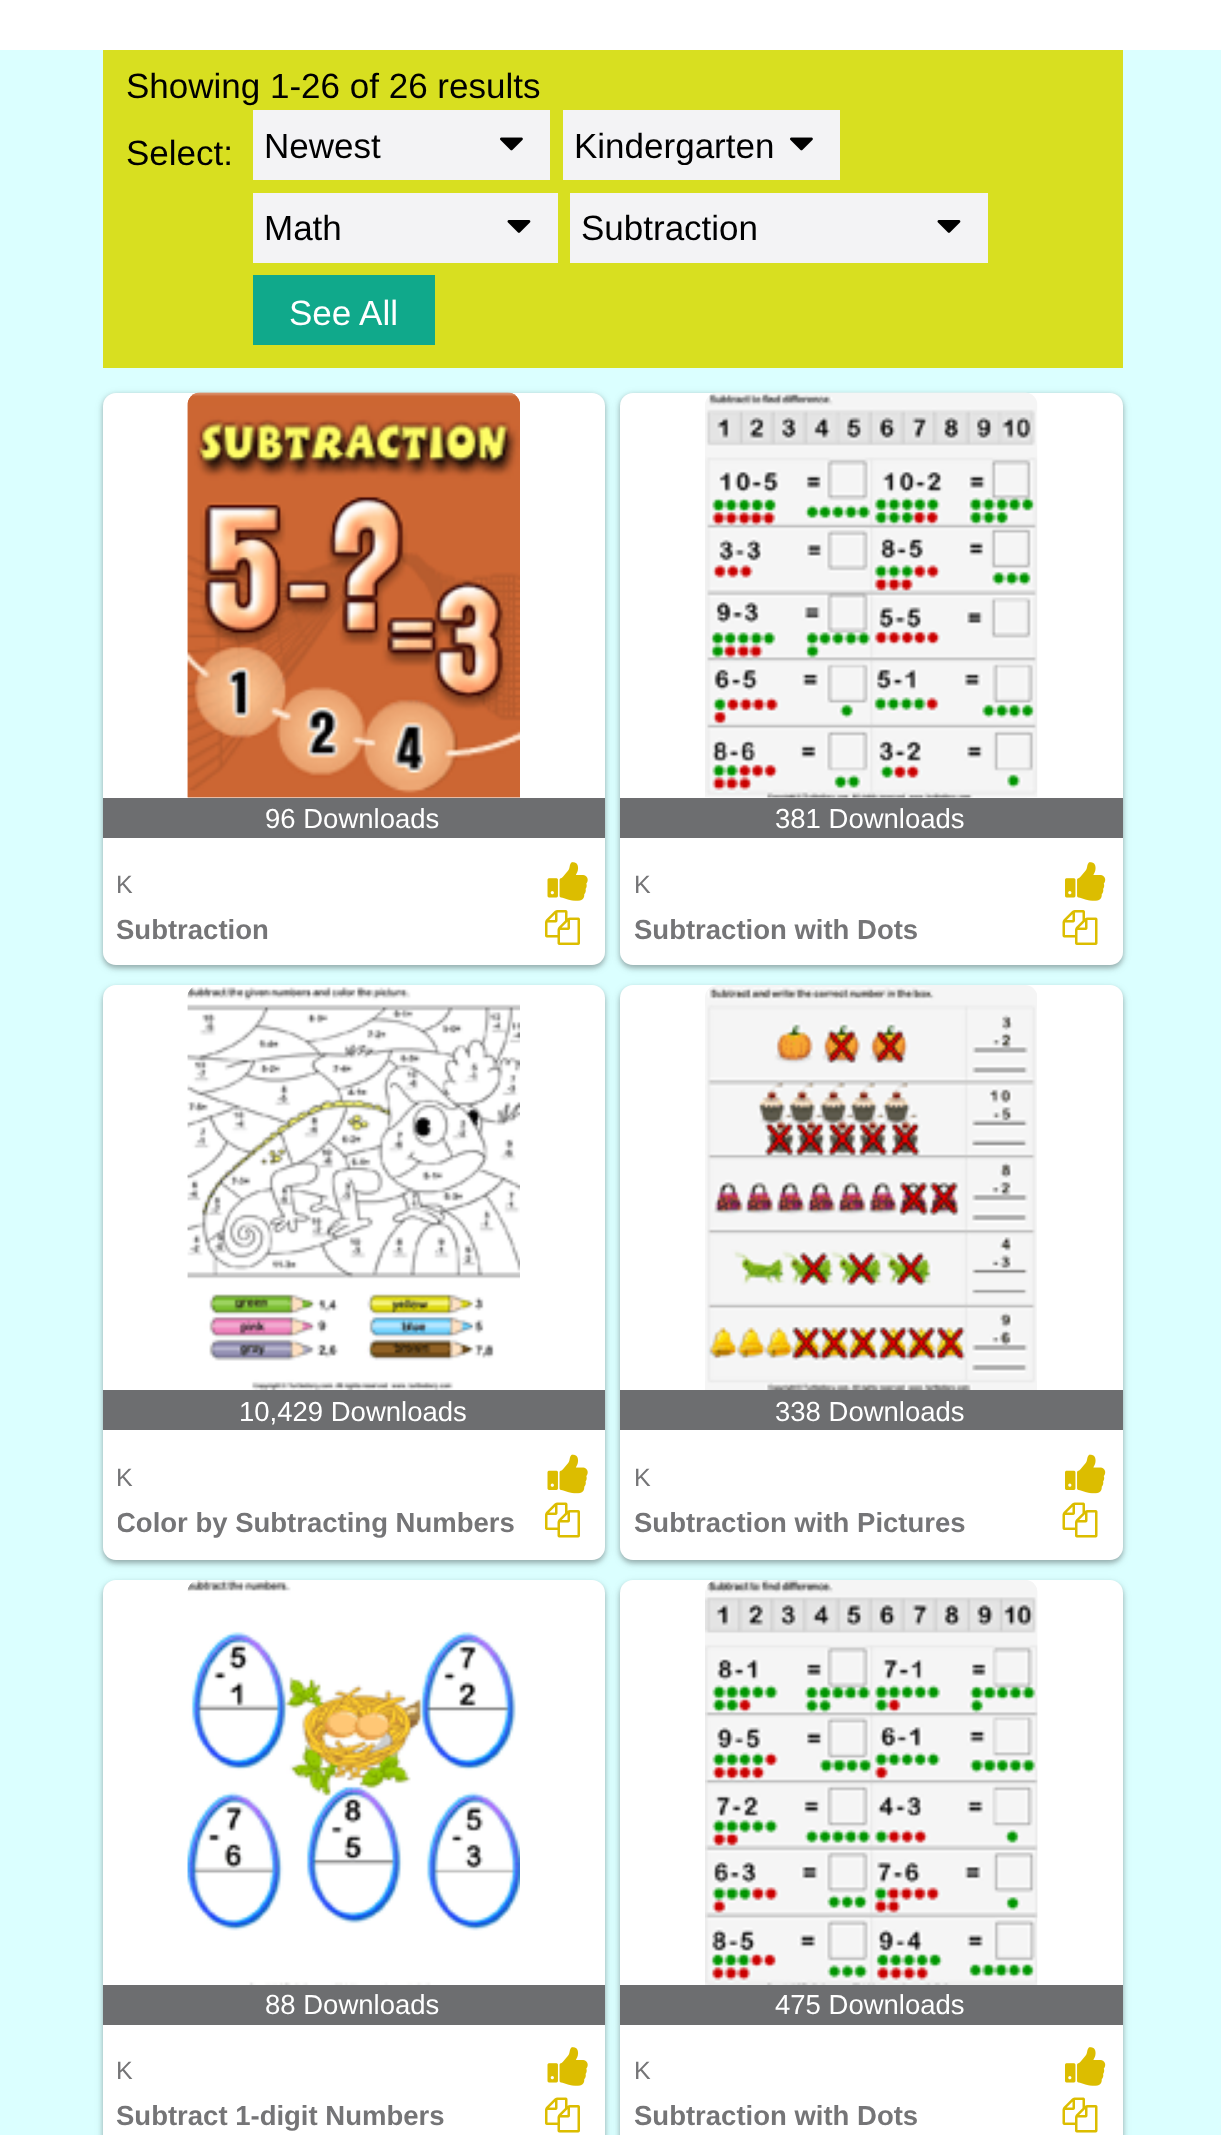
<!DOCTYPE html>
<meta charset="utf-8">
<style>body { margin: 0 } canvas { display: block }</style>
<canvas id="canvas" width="1221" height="2135"></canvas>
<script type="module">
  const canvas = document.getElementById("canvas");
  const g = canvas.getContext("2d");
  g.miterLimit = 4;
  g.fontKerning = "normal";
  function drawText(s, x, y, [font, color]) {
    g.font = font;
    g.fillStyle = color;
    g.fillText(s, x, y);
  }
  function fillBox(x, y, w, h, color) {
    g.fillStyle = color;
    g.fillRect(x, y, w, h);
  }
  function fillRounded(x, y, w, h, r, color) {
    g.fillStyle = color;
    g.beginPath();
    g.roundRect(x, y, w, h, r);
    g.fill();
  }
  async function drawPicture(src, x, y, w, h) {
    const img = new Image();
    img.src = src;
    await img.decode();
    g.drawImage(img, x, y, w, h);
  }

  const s1 = ["35px Liberation Sans", "#000000"];
  const s2 = ["35px Liberation Sans", "#FFFFFF"];
  const s3 = ["27.5px Liberation Sans", "#FFFFFF"];
  const s4 = ["25px Liberation Sans", "#757577"];
  const s5 = ["bold 27.5px Liberation Sans", "#757577"];

  fillBox(0, 0, 1221, 2135, "#FFFFFF");
  fillBox(0, 50, 1221, 2085, "#DBFFFF");
  fillBox(103, 50, 1020, 318, "#D8DF20");
  drawText("Showing 1-26 of 26 results", 126, 98, s1);
  drawText("Select:", 126, 165, s1);
  fillBox(253, 110, 297, 70, "#F3F3F5");
  drawText("Newest", 264, 158, s1);
  await drawPicture("pic1.png", 500, 137, 23, 14);
  fillBox(563, 110, 277, 70, "#F3F3F5");
  g.save();
  g.beginPath();
  g.rect(575, 125, 203, 40);
  g.clip();
  drawText("Kindergarten", 574, 158, s1);
  g.restore();
  await drawPicture("pic1.png", 790, 137, 23, 14);
  fillBox(253, 193, 305, 70, "#F3F3F5");
  drawText("Math", 264, 240, s1);
  await drawPicture("pic2.png", 507, 220, 24, 13);
  fillBox(570, 193, 418, 70, "#F3F3F5");
  drawText("Subtraction", 581, 240, s1);
  await drawPicture("pic2.png", 937, 220, 24, 13);
  fillBox(253, 275, 182, 70, "#10A98B");
  drawText("See All", 289, 325, s2);
  g.fillStyle = "rgba(0, 0, 0, 0.24)";
  g.filter = "blur(2.5px)";
  g.beginPath();
  g.roundRect(103, 395, 502, 573, 13);
  g.fill();
  g.filter = "none";
  g.fillStyle = "rgba(0, 0, 0, 0.12)";
  g.filter = "blur(4px)";
  g.beginPath();
  g.roundRect(103, 395, 502, 573, 13);
  g.fill();
  g.filter = "none";
  fillRounded(103, 393, 502, 572, 13, "#FFFFFF");
  await drawPicture("pic3.png", 187, 392, 333, 406);
  await drawPicture("pic4.png", 187, 392, 333, 406);
  fillBox(103, 798, 502, 40, "#6D6E70");
  drawText("96 Downloads", 265, 828, s3);
  drawText("K", 116, 893, s4);
  await drawPicture("pic5.png", 547, 862, 41, 39);
  drawText("Subtraction", 116, 939, s5);
  await drawPicture("pic6.png", 545, 910, 35, 35);
  g.fillStyle = "rgba(0, 0, 0, 0.24)";
  g.filter = "blur(2.5px)";
  g.beginPath();
  g.roundRect(620, 395, 503, 573, 13);
  g.fill();
  g.filter = "none";
  g.fillStyle = "rgba(0, 0, 0, 0.12)";
  g.filter = "blur(4px)";
  g.beginPath();
  g.roundRect(620, 395, 503, 573, 13);
  g.fill();
  g.filter = "none";
  fillRounded(620, 393, 503, 572, 13, "#FFFFFF");
  await drawPicture("pic7.png", 705, 392, 333, 406);
  await drawPicture("pic8.png", 709, 392, 318, 406);
  fillBox(620, 798, 503, 40, "#6D6E70");
  drawText("381 Downloads", 775, 828, s3);
  drawText("K", 634, 893, s4);
  await drawPicture("pic9.png", 1065, 862, 41, 39);
  drawText("Subtraction with Dots", 634, 939, s5);
  await drawPicture("pic10.png", 1062, 910, 36, 35);
  g.fillStyle = "rgba(0, 0, 0, 0.24)";
  g.filter = "blur(2.5px)";
  g.beginPath();
  g.roundRect(103, 988, 502, 575, 13);
  g.fill();
  g.filter = "none";
  g.fillStyle = "rgba(0, 0, 0, 0.12)";
  g.filter = "blur(4px)";
  g.beginPath();
  g.roundRect(103, 988, 502, 575, 13);
  g.fill();
  g.filter = "none";
  fillRounded(103, 985, 502, 575, 13, "#FFFFFF");
  await drawPicture("pic11.png", 187, 986, 333, 404);
  await drawPicture("pic12.png", 187, 987, 6, 291);
  fillBox(103, 1390, 502, 40, "#6D6E70");
  drawText("10,429 Downloads", 239, 1421, s3);
  drawText("K", 116, 1486, s4);
  await drawPicture("pic13.png", 547, 1454, 41, 40);
  g.save();
  g.beginPath();
  g.rect(118, 1505, 422, 40);
  g.clip();
  drawText("Color by Subtracting Numbers", 116, 1532, s5);
  g.restore();
  await drawPicture("pic14.png", 545, 1502, 35, 36);
  g.fillStyle = "rgba(0, 0, 0, 0.24)";
  g.filter = "blur(2.5px)";
  g.beginPath();
  g.roundRect(620, 988, 503, 575, 13);
  g.fill();
  g.filter = "none";
  g.fillStyle = "rgba(0, 0, 0, 0.12)";
  g.filter = "blur(4px)";
  g.beginPath();
  g.roundRect(620, 988, 503, 575, 13);
  g.fill();
  g.filter = "none";
  fillRounded(620, 985, 503, 575, 13, "#FFFFFF");
  await drawPicture("pic15.png", 705, 985, 332, 405);
  fillBox(620, 1390, 503, 40, "#6D6E70");
  drawText("338 Downloads", 775, 1421, s3);
  drawText("K", 634, 1486, s4);
  await drawPicture("pic16.png", 1065, 1454, 41, 40);
  drawText("Subtraction with Pictures", 634, 1532, s5);
  await drawPicture("pic17.png", 1062, 1502, 36, 36);
  g.fillStyle = "rgba(0, 0, 0, 0.24)";
  g.filter = "blur(2.5px)";
  g.beginPath();
  g.roundRect(103, 1583, 502, 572, 13);
  g.fill();
  g.filter = "none";
  g.fillStyle = "rgba(0, 0, 0, 0.12)";
  g.filter = "blur(4px)";
  g.beginPath();
  g.roundRect(103, 1583, 502, 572, 13);
  g.fill();
  g.filter = "none";
  fillRounded(103, 1580, 502, 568, 13, "#FFFFFF");
  await drawPicture("pic18.png", 187, 1580, 333, 405);
  await drawPicture("pic19.png", 187, 1580, 12, 305);
  fillBox(103, 1985, 502, 40, "#6D6E70");
  drawText("88 Downloads", 265, 2014, s3);
  drawText("K", 116, 2079, s4);
  await drawPicture("pic5.png", 547, 2047, 41, 39);
  drawText("Subtract 1-digit Numbers", 116, 2125, s5);
  await drawPicture("pic14.png", 545, 2097, 35, 36);
  g.fillStyle = "rgba(0, 0, 0, 0.24)";
  g.filter = "blur(2.5px)";
  g.beginPath();
  g.roundRect(620, 1583, 503, 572, 13);
  g.fill();
  g.filter = "none";
  g.fillStyle = "rgba(0, 0, 0, 0.12)";
  g.filter = "blur(4px)";
  g.beginPath();
  g.roundRect(620, 1583, 503, 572, 13);
  g.fill();
  g.filter = "none";
  fillRounded(620, 1580, 503, 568, 13, "#FFFFFF");
  await drawPicture("pic20.png", 705, 1580, 333, 405);
  await drawPicture("pic21.png", 707, 1580, 331, 338);
  fillBox(620, 1985, 503, 40, "#6D6E70");
  drawText("475 Downloads", 775, 2014, s3);
  drawText("K", 634, 2079, s4);
  await drawPicture("pic9.png", 1065, 2047, 41, 39);
  drawText("Subtraction with Dots", 634, 2125, s5);
  await drawPicture("pic17.png", 1062, 2097, 36, 36);
</script>
